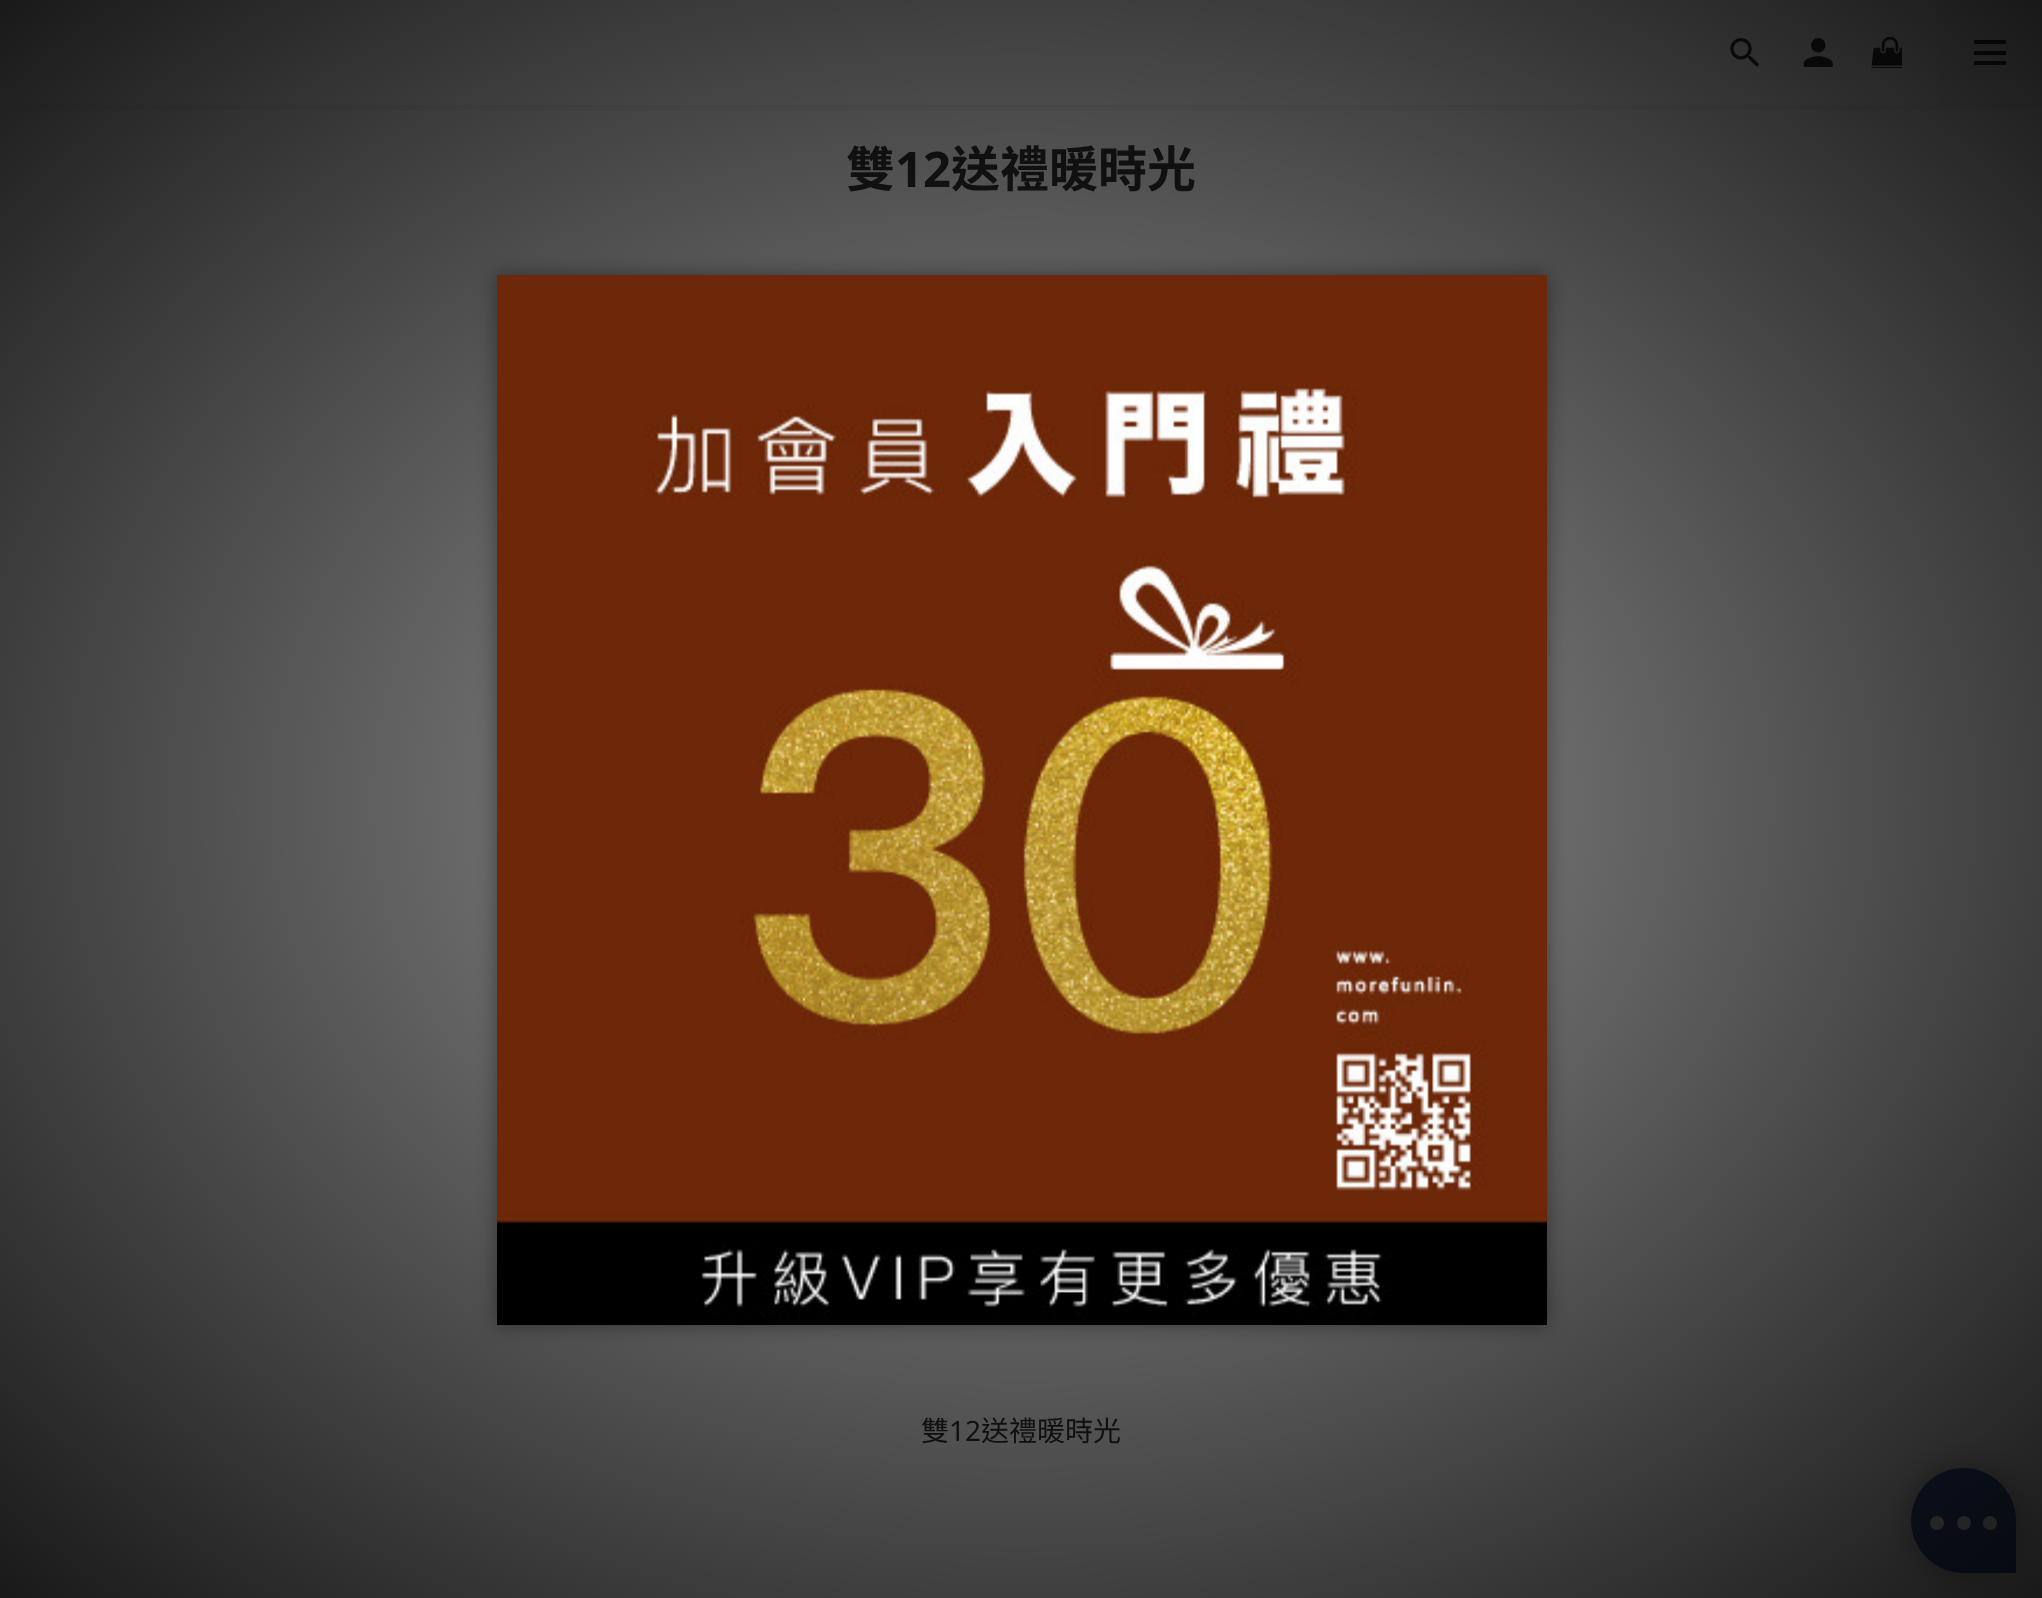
<!DOCTYPE html>
<meta charset="utf-8">
<style>body { margin: 0 } canvas { display: block }</style>
<canvas id="canvas" width="2042" height="1598"></canvas>
<script type="module">
  const canvas = document.getElementById("canvas");
  const g = canvas.getContext("2d");
  g.miterLimit = 4;
  g.fontKerning = "normal";
  function drawText(s, x, y, [font, color]) {
    g.font = font;
    g.fillStyle = color;
    g.fillText(s, x, y);
  }
  function fillBox(x, y, w, h, color) {
    g.fillStyle = color;
    g.fillRect(x, y, w, h);
  }
  async function drawPicture(src, x, y, w, h) {
    const img = new Image();
    img.src = src;
    await img.decode();
    g.drawImage(img, x, y, w, h);
  }
  let gradient;

  const s1 = ["bold 49px Noto Sans TC", "#333333"];
  const s2 = ["bold 49px Noto Sans", "#333333"];
  const s3 = ["28px Noto Sans TC", "#333333"];
  const s4 = ["28px Noto Sans", "#333333"];

  fillBox(0, 0, 2042, 1598, "#FFFFFF");
  g.save();
  g.beginPath();
  g.rect(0, 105, 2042, 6);
  g.clip();
  g.fillStyle = "rgba(0, 0, 0, 0.06)";
  g.filter = "blur(5px)";
  g.beginPath();
  g.rect(0, 4, 2042, 105);
  g.fill();
  g.filter = "none";
  g.restore();
  await drawPicture("pic1.png", 1730, 38, 30, 29);
  await drawPicture("pic2.png", 1803, 38, 30, 29);
  await drawPicture("pic3.png", 1871, 37, 31, 31);
  fillBox(1937, 0, 105, 105, "#F7F7F7");
  fillBox(1974, 51, 32, 4, "#333333");
  fillBox(1974, 40, 32, 4, "#333333");
  fillBox(1974, 61, 32, 4, "#333333");
  drawText("雙", 846, 187, s1);
  drawText("12", 895, 187, s2);
  drawText("送禮暖時光", 951, 187, s1);
  drawText("雙", 921, 1441, s3);
  drawText("12", 949, 1441, s4);
  drawText("送禮暖時光", 981, 1441, s3);
  g.fillStyle = "rgba(119, 119, 119, 0.64)";
  g.filter = "blur(17.5px)";
  g.beginPath();
  g.roundRect(1911, 1468, 105, 105, 52.5);
  g.fill();
  g.filter = "none";
  g.fillStyle = "#3B5998";
  g.beginPath();
  g.roundRect(1911, 1468, 105, 105, [52.5, 52.5, 0, 52.5]);
  g.fill();
  g.fillStyle = "#FFFFFF";
  g.beginPath();
  g.arc(1937, 1523, 7, 0, Math.PI * 2);
  g.fill();
  g.beginPath();
  g.arc(1964, 1523, 7, 0, Math.PI * 2);
  g.fill();
  g.beginPath();
  g.arc(1990, 1523, 7, 0, Math.PI * 2);
  g.fill();
  gradient = g.createRadialGradient(1021, 1021.4, 0, 1021, 1021.4, 1444);
  gradient.addColorStop(0, "rgba(0, 0, 0, 0.4)");
  gradient.addColorStop(1, "rgba(0, 0, 0, 0.9)");
  g.fillStyle = gradient;
  g.beginPath();
  g.rect(0, 0, 2042, 1598);
  g.save();
  g.clip();
  g.scale(1, 1131 / 1444);
  g.fillRect(0, 0, 2042, 2041);
  g.restore();
  g.fillStyle = "rgba(0, 0, 0, 0.4)";
  g.filter = "blur(9.5px)";
  g.beginPath();
  g.roundRect(497, 275, 1050, 1050, 4);
  g.fill();
  g.filter = "none";
  await drawPicture("pic4.png", 497, 275, 1050, 1050);
</script>
